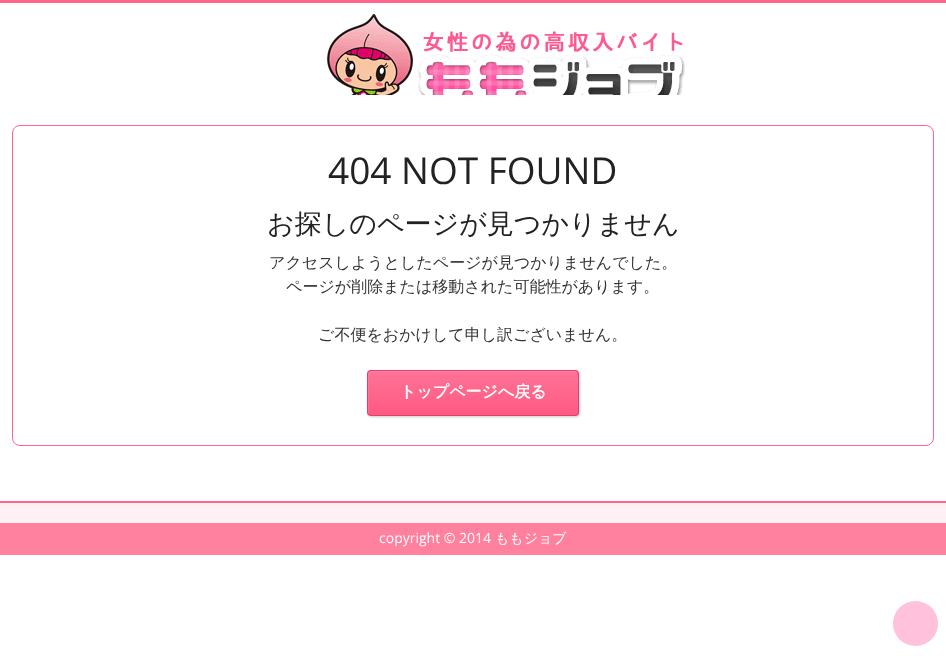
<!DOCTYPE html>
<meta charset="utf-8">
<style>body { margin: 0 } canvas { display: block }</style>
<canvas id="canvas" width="946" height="656"></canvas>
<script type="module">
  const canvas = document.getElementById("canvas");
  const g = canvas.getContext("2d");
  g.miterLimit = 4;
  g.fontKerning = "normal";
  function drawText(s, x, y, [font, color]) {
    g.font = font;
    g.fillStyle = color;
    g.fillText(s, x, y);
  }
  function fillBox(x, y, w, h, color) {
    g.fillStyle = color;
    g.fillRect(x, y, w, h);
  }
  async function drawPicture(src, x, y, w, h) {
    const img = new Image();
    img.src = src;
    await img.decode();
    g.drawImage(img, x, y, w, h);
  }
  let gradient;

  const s1 = ["37px Open Sans", "#222222"];
  const s2 = ["500 27px WenQuanYi Zen Hei", "#222222"];
  const s3 = ["500 16px WenQuanYi Zen Hei", "#333333"];
  const s4 = ["bold 16px WenQuanYi Zen Hei", "#FFFFFF"];
  const s5 = ["14px Open Sans", "#FFFFFF"];
  const s6 = ["500 14px WenQuanYi Zen Hei", "#FFFFFF"];

  fillBox(0, 0, 946, 656, "#FFFFFF");
  fillBox(0, 0, 946, 3, "#FF668C");
  await drawPicture("pic1.png", 327, 14, 358, 81);
  g.beginPath();
  g.roundRect(12.5, 125.5, 921, 320, 7.5);
  g.strokeStyle = "#FF668C";
  g.stroke();
  drawText("404 NOT FOUND", 328, 184, s1);
  drawText("お探しのページが見つかりません", 267, 233, s2);
  drawText("アクセスしようとしたページが見つかりませんでした。", 269, 268, s3);
  drawText("ページが削除または移動された可能性があります。", 286, 292, s3);
  drawText("ご不便をおかけして申し訳ございません。", 318, 340, s3);
  g.fillStyle = "rgba(0, 0, 0, 0.2)";
  g.filter = "blur(1px)";
  g.beginPath();
  g.roundRect(368, 371, 212, 46, 4);
  g.fill();
  g.filter = "none";
  g.save();
  g.beginPath();
  g.roundRect(367, 370, 212, 46, 4);
  g.clip();
  gradient = g.createLinearGradient(368, 327, 368, 371);
  gradient.addColorStop(0, "#FF7396");
  gradient.addColorStop(1, "#FF5983");
  g.fillStyle = gradient;
  g.fillRect(367, 370, 212, 1);
  gradient = g.createLinearGradient(368, 371, 368, 415);
  gradient.addColorStop(0, "#FF7396");
  gradient.addColorStop(1, "#FF5983");
  g.fillStyle = gradient;
  g.fillRect(367, 371, 212, 44);
  gradient = g.createLinearGradient(368, 415, 368, 459);
  gradient.addColorStop(0, "#FF7396");
  gradient.addColorStop(1, "#FF5983");
  g.fillStyle = gradient;
  g.fillRect(367, 415, 212, 1);
  g.restore();
  g.fillStyle = "rgba(255, 255, 255, 0.1)";
  g.beginPath();
  g.moveTo(372, 372);
  g.lineTo(577, 372);
  g.bezierCurveTo(577, 371, 576, 371, 575, 371);
  g.lineTo(371, 371);
  g.bezierCurveTo(369, 371, 368, 372, 368, 374);
  g.lineTo(368, 412);
  g.bezierCurveTo(368, 413, 368, 414, 369, 414);
  g.lineTo(369, 381);
  g.bezierCurveTo(369, 379, 367, 372, 372, 372);
  g.closePath();
  g.fill();
  g.beginPath();
  g.roundRect(367.5, 370.5, 211, 45, 3.5);
  g.strokeStyle = "rgba(217, 61, 113, 0.9)";
  g.stroke();
  drawText("トップページへ戻る", 400, 397, s4);
  fillBox(0, 503, 946, 20, "#FFF0F4");
  fillBox(0, 501, 946, 2, "#FF668C");
  fillBox(0, 523, 946, 32, "#FF809F");
  drawText("copyright © 2014", 379, 543, s5);
  drawText("ももジョブ", 495, 543, s6);
  g.fillStyle = "#FFC1DB";
  g.beginPath();
  g.arc(915.5, 623.5, 22.5, 0, Math.PI * 2);
  g.fill();
</script>
